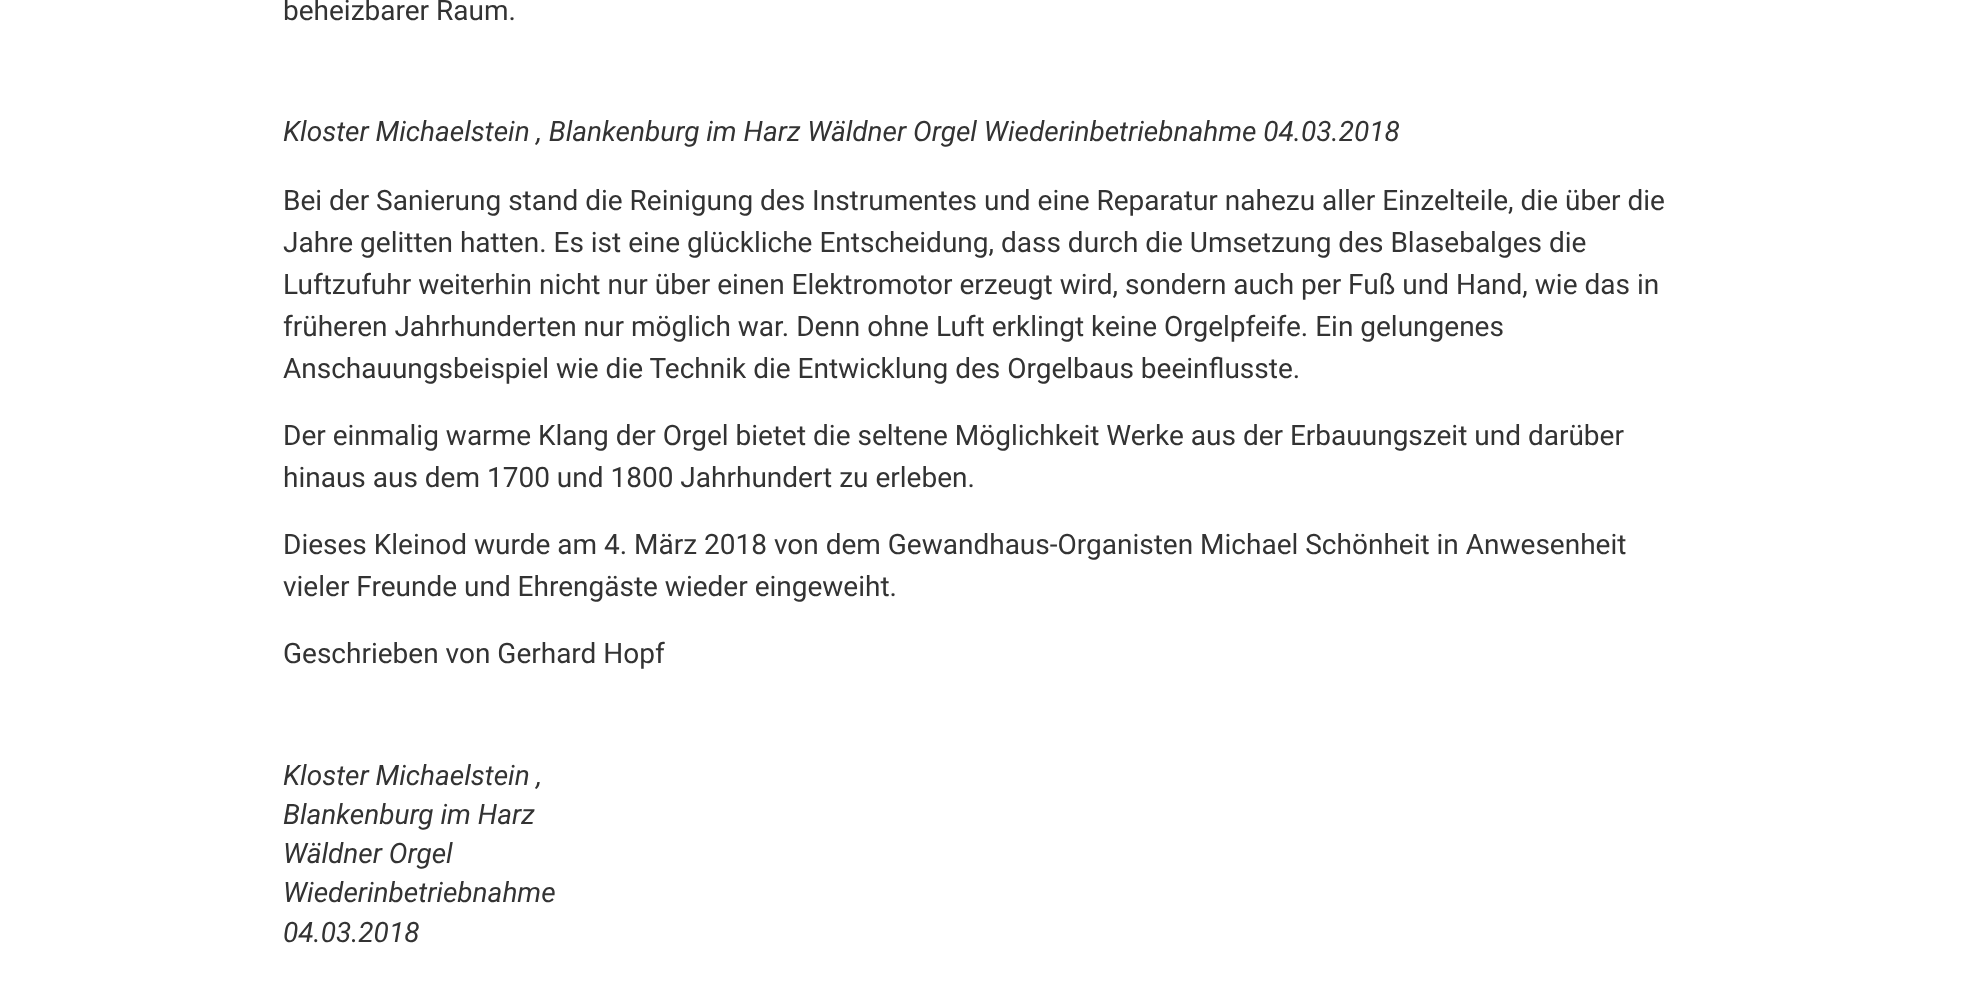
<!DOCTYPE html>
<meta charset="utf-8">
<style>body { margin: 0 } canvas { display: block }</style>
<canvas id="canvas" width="1964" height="1007"></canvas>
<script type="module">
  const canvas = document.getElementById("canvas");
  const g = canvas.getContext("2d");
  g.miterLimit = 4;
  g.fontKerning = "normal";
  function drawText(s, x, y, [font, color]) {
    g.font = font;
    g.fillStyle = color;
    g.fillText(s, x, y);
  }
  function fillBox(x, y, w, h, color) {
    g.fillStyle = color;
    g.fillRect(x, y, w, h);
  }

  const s1 = ["28px Roboto", "#333333"];
  const s2 = ["italic 28px Roboto", "#333333"];

  fillBox(0, 0, 1964, 1007, "#FFFFFF");
  drawText("beheizbarer Raum.", 283, 20, s1);
  drawText("Kloster Michaelstein , Blankenburg im Harz Wäldner Orgel Wiederinbetriebnahme 04.03.2018", 283, 141, s2);
  drawText("Bei der Sanierung stand die Reinigung des Instrumentes und eine Reparatur nahezu aller Einzelteile, die über die", 283, 210, s1);
  drawText("Jahre gelitten hatten. Es ist eine glückliche Entscheidung, dass durch die Umsetzung des Blasebalges die", 283, 252, s1);
  drawText("Luftzufuhr weiterhin nicht nur über einen Elektromotor erzeugt wird, sondern auch per Fuß und Hand, wie das in", 283, 294, s1);
  drawText("früheren Jahrhunderten nur möglich war. Denn ohne Luft erklingt keine Orgelpfeife. Ein gelungenes", 283, 336, s1);
  drawText("Anschauungsbeispiel wie die Technik die Entwicklung des Orgelbaus beeinflusste.", 283, 378, s1);
  drawText("Der einmalig warme Klang der Orgel bietet die seltene Möglichkeit Werke aus der Erbauungszeit und darüber", 283, 445, s1);
  drawText("hinaus aus dem 1700 und 1800 Jahrhundert zu erleben.", 283, 487, s1);
  drawText("Dieses Kleinod wurde am 4. März 2018 von dem Gewandhaus-Organisten Michael Schönheit in Anwesenheit", 283, 554, s1);
  drawText("vieler Freunde und Ehrengäste wieder eingeweiht.", 283, 596, s1);
  drawText("Geschrieben von Gerhard Hopf", 283, 663, s1);
  drawText("Kloster Michaelstein ,", 283, 785, s2);
  drawText("Blankenburg im Harz", 283, 824, s2);
  drawText("Wäldner Orgel", 283, 863, s2);
  drawText("Wiederinbetriebnahme", 283, 902, s2);
  drawText("04.03.2018", 283, 942, s2);
</script>
